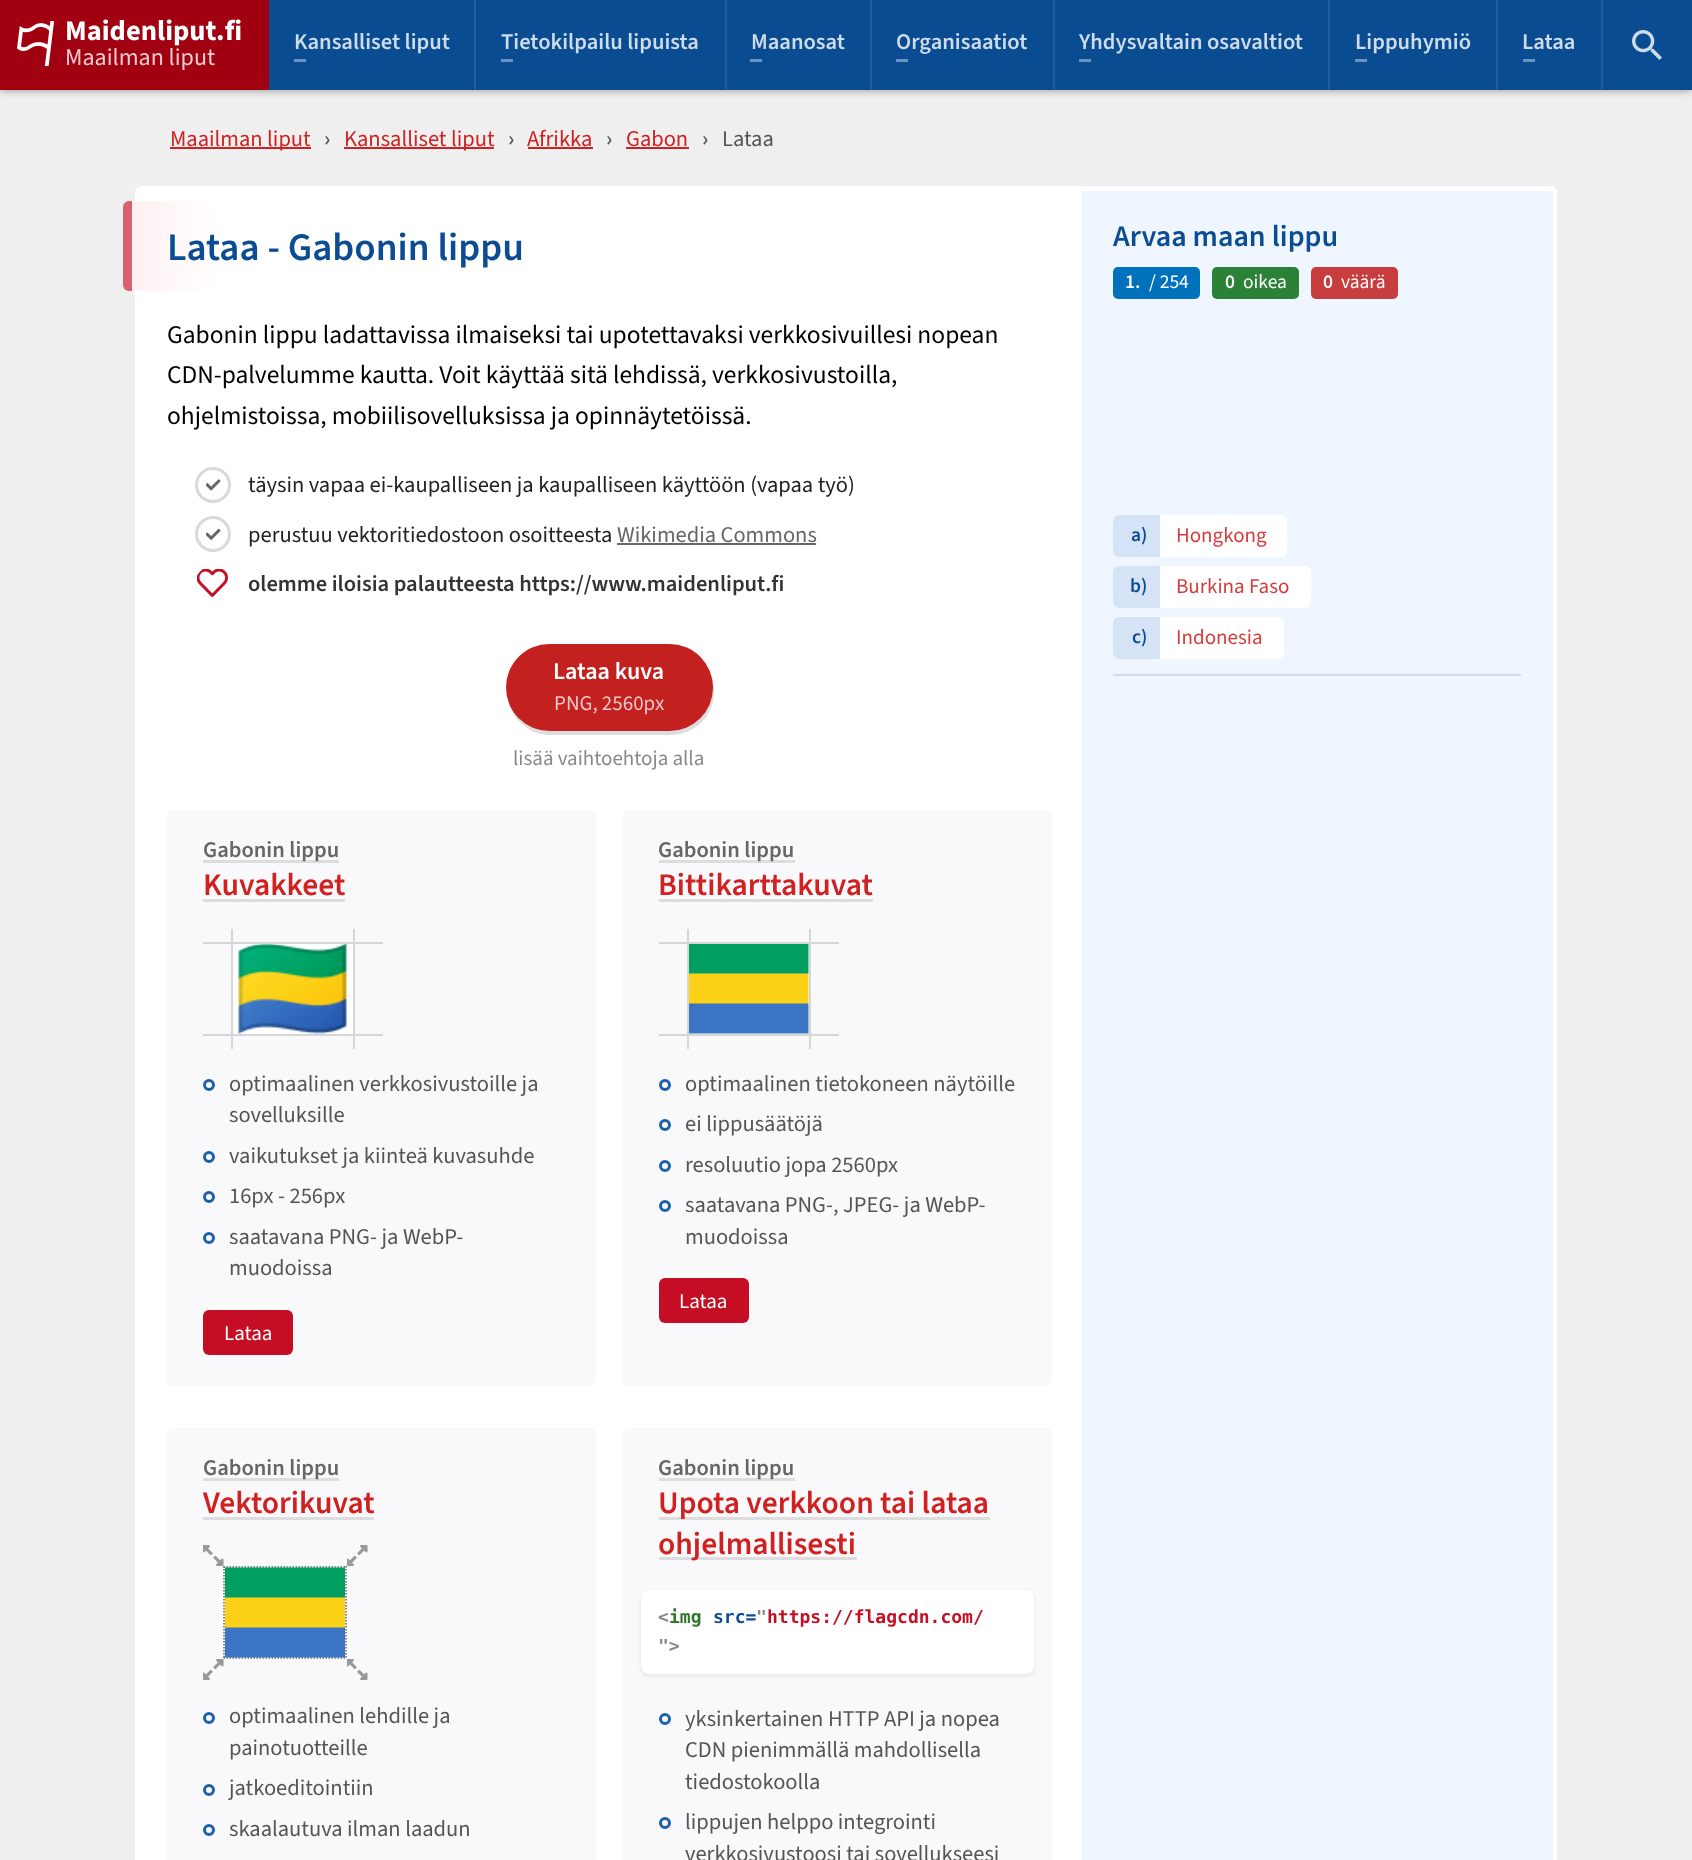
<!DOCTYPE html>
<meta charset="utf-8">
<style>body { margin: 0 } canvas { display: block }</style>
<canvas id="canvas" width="1692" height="1860"></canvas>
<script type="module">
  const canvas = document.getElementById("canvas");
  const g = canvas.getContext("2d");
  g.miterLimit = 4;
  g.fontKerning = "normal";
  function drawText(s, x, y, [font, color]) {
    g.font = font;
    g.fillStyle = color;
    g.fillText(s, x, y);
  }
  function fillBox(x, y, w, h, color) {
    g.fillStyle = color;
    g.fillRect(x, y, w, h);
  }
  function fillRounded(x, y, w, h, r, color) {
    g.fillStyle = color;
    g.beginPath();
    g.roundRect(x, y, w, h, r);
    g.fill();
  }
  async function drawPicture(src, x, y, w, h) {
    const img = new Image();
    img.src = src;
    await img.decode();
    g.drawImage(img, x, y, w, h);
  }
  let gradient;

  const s1 = ["bold 28.5px 'Source Sans 3'", "#FFFFFF"];
  const s2 = ["24px 'Source Sans 3'", "#ECCCCF"];
  const s3 = ["600 22.5px 'Source Sans 3'", "#CEDBE9"];
  const s4 = ["22.5px 'Source Sans 3'", "#D02020"];
  const s5 = ["600 22.5px 'Source Sans 3'", "#555555"];
  const s6 = ["22.5px 'Source Sans 3'", "#555555"];
  const s7 = ["600 39px 'Source Sans 3'", "#0B4C92"];
  const s8 = ["25.5px 'Source Sans 3'", "#000000"];
  const s9 = ["22.5px 'Source Sans 3'", "#222222"];
  const s10 = ["22.5px 'Source Sans 3'", "#666666"];
  const s11 = ["600 22.5px 'Source Sans 3'", "#333333"];
  const s12 = ["600 24px 'Source Sans 3'", "#FFFFFF"];
  const s13 = ["21px 'Source Sans 3'", "#F0C7C7"];
  const s14 = ["21px 'Source Sans 3'", "#888888"];
  const s15 = ["600 22.5px 'Source Sans 3'", "#666666"];
  const s16 = ["600 31.5px 'Source Sans 3'", "#D02020"];
  const s17 = ["21px 'Source Sans 3'", "#FFFFFF"];
  const s18 = ["bold 18px DejaVu Sans Mono", "#888888"];
  const s19 = ["bold 18px DejaVu Sans Mono", "#2D7725"];
  const s20 = ["bold 18px DejaVu Sans Mono", "#0B4C92"];
  const s21 = ["bold 18px DejaVu Sans Mono", "#C50F25"];
  const s22 = ["600 30px 'Source Sans 3'", "#0B4C92"];
  const s23 = ["600 19.5px 'Source Sans 3'", "#FFFFFF"];
  const s24 = ["19.5px 'Source Sans 3'", "#FFFFFF"];
  const s25 = ["600 19.5px 'Source Sans 3'", "#0B4C92"];
  const s26 = ["21px 'Source Sans 3'", "#D53B39"];

  fillBox(0, 0, 1692, 1860, "#EFEFEF");
  g.fillStyle = "rgba(0, 0, 0, 0.4)";
  g.filter = "blur(4.5px)";
  g.beginPath();
  g.rect(0, 0, 1692, 90);
  g.fill();
  g.filter = "none";
  fillBox(269, 0, 1423, 90, "#094C92");
  fillBox(0, 0, 269, 90, "#A00010");
  await drawPicture("pic1.png", 17, 21, 38, 45);
  drawText("Maidenliput.fi", 65, 40, s1);
  drawText("Maailman liput", 65, 65, s2);
  fillBox(474, 0, 2, 90, "#225E9D");
  drawText("Kansalliset liput", 294, 49, s3);
  fillBox(294, 59, 12, 3, "#6B94BE");
  fillBox(725, 0, 2, 90, "#225E9D");
  drawText("Tietokilpailu lipuista", 501, 49, s3);
  fillBox(501, 59, 12, 3, "#6B94BE");
  fillBox(870, 0, 2, 90, "#225E9D");
  drawText("Maanosat", 751, 49, s3);
  fillBox(750, 59, 12, 3, "#6B94BE");
  fillBox(1053, 0, 2, 90, "#225E9D");
  drawText("Organisaatiot", 896, 49, s3);
  fillBox(896, 59, 12, 3, "#6B94BE");
  fillBox(1328, 0, 2, 90, "#225E9D");
  drawText("Yhdysvaltain osavaltiot", 1079, 49, s3);
  fillBox(1079, 59, 12, 3, "#6B94BE");
  fillBox(1496, 0, 2, 90, "#225E9D");
  drawText("Lippuhymiö", 1355, 49, s3);
  fillBox(1355, 59, 12, 3, "#6B94BE");
  fillBox(1601, 0, 2, 90, "#225E9D");
  drawText("Lataa", 1522, 49, s3);
  fillBox(1523, 59, 12, 3, "#6B94BE");
  await drawPicture("pic2.png", 1632, 30, 30, 30);
  fillBox(170, 147, 141, 2, "#D02020");
  drawText("Maailman liput", 170, 146, s4);
  drawText("›", 324, 146, s5);
  fillBox(344, 147, 150, 2, "#D02020");
  drawText("Kansalliset liput", 344, 146, s4);
  drawText("›", 508, 146, s5);
  drawText("Afrikka", 527, 146, s4);
  fillBox(528, 147, 65, 2, "#D02020");
  drawText("›", 606, 146, s5);
  drawText("Gabon", 626, 146, s4);
  fillBox(626, 147, 63, 2, "#D02020");
  drawText("›", 702, 146, s5);
  drawText("Lataa", 722, 146, s6);
  fillRounded(135, 186, 1422, 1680, 6, "#FFFFFF");
  gradient = g.createLinearGradient(123, 246, 1052, 246);
  gradient.addColorStop(0.01, "#D86170");
  gradient.addColorStop(0.01, "#BC4A59");
  gradient.addColorStop(0.01, "#FEF0F1");
  gradient.addColorStop(0.1, "#FFFFFF");
  g.fillStyle = gradient;
  g.beginPath();
  g.roundRect(123, 201, 929, 90, [6, 0, 0, 6]);
  g.fill();
  drawText("Lataa - Gabonin lippu", 167, 260, s7);
  drawText("Gabonin lippu ladattavissa ilmaiseksi tai upotettavaksi verkkosivuillesi nopean", 167, 343, s8);
  drawText("CDN-palvelumme kautta. Voit käyttää sitä lehdissä, verkkosivustoilla,", 167, 383, s8);
  drawText("ohjelmistoissa, mobiilisovelluksissa ja opinnäytetöissä.", 167, 424, s8);
  await drawPicture("pic3.png", 206, 479, 15, 12);
  g.beginPath();
  g.arc(213, 485, 16.5, 0, Math.PI * 2);
  g.strokeStyle = "#D9D9D9";
  g.lineWidth = 3;
  g.stroke();
  drawText("täysin vapaa ei-kaupalliseen ja kaupalliseen käyttöön (vapaa työ)", 248, 492, s9);
  await drawPicture("pic4.png", 206, 528, 15, 12);
  g.beginPath();
  g.arc(213, 534, 16.5, 0, Math.PI * 2);
  g.stroke();
  drawText("perustuu vektoritiedostoon osoitteesta", 248, 542, s9);
  drawText("Wikimedia Commons", 617, 542, s10);
  fillBox(617, 543, 199, 2, "#666666");
  await drawPicture("pic5.png", 197, 569, 31, 28);
  drawText("olemme iloisia palautteesta https://www.maidenliput.fi", 248, 591, s11);
  g.fillStyle = "#DDDDDD";
  g.beginPath();
  g.moveTo(509, 703);
  g.bezierCurveTo(514, 721, 530, 735, 550, 735);
  g.lineTo(670, 735);
  g.bezierCurveTo(695, 735, 714, 716, 714, 692);
  g.bezierCurveTo(714, 686, 713, 680, 711, 676);
  g.bezierCurveTo(712, 679, 712, 683, 712, 687);
  g.bezierCurveTo(712, 711, 693, 730, 669, 730);
  g.lineTo(549, 730);
  g.bezierCurveTo(531, 730, 515, 719, 509, 703);
  g.closePath();
  g.fill();
  fillRounded(506, 644, 207, 87, 43.5, "#C32020");
  drawText("Lataa kuva", 553, 679, s12);
  drawText("PNG, 2560px", 554, 710, s13);
  drawText("lisää vaihtoehtoja alla", 513, 765, s14);
  fillRounded(167, 810, 429, 576, 6, "#F9F9FB");
  fillBox(203, 860, 136, 3, "#DDDDDD");
  drawText("Gabonin lippu", 203, 857, s15);
  drawText("Kuvakkeet", 203, 895, s16);
  fillBox(203, 899, 142, 3, "#DDDDDD");
  fillBox(231, 929, 2, 120, "#D6D6D6");
  fillBox(203, 942, 180, 2, "#D6D6D6");
  fillBox(203, 1034, 180, 2, "#D6D6D6");
  fillBox(353, 929, 2, 120, "#D6D6D6");
  fillBox(233, 944, 120, 90, "#FFFFFF");
  await drawPicture("pic6.png", 238, 944, 109, 90);
  g.beginPath();
  g.arc(209, 1085, 4.5, 0, Math.PI * 2);
  g.strokeStyle = "#1D62A9";
  g.stroke();
  drawText("optimaalinen verkkosivustoille ja", 229, 1091, s6);
  drawText("sovelluksille", 229, 1122, s6);
  g.beginPath();
  g.arc(209, 1157, 4.5, 0, Math.PI * 2);
  g.stroke();
  drawText("vaikutukset ja kiinteä kuvasuhde", 229, 1163, s6);
  g.beginPath();
  g.arc(209, 1197, 4.5, 0, Math.PI * 2);
  g.stroke();
  drawText("16px - 256px", 229, 1203, s6);
  g.beginPath();
  g.arc(209, 1238, 4.5, 0, Math.PI * 2);
  g.stroke();
  drawText("saatavana PNG- ja WebP-", 229, 1244, s6);
  drawText("muodoissa", 229, 1275, s6);
  fillRounded(203, 1310, 90, 45, 6, "#C50E24");
  drawText("Lataa", 224, 1340, s17);
  fillRounded(623, 810, 429, 576, 6, "#F9F9FB");
  fillBox(659, 860, 136, 3, "#DDDDDD");
  drawText("Gabonin lippu", 658, 857, s15);
  drawText("Bittikarttakuvat", 658, 895, s16);
  fillBox(659, 899, 214, 3, "#DDDDDD");
  fillBox(687, 929, 2, 120, "#D6D6D6");
  fillBox(659, 942, 180, 2, "#D6D6D6");
  fillBox(659, 1034, 180, 2, "#D6D6D6");
  fillBox(809, 929, 2, 120, "#D6D6D6");
  fillBox(689, 944, 120, 90, "#FFFFFF");
  await drawPicture("pic7.png", 689, 944, 120, 90);
  g.beginPath();
  g.arc(665, 1085, 4.5, 0, Math.PI * 2);
  g.stroke();
  drawText("optimaalinen tietokoneen näytöille", 685, 1091, s6);
  g.beginPath();
  g.arc(665, 1125, 4.5, 0, Math.PI * 2);
  g.stroke();
  drawText("ei lippusäätöjä", 685, 1131, s6);
  g.beginPath();
  g.arc(665, 1166, 4.5, 0, Math.PI * 2);
  g.stroke();
  drawText("resoluutio jopa 2560px", 685, 1172, s6);
  g.beginPath();
  g.arc(665, 1206, 4.5, 0, Math.PI * 2);
  g.stroke();
  drawText("saatavana PNG-, JPEG- ja WebP-", 685, 1212, s6);
  drawText("muodoissa", 685, 1244, s6);
  fillRounded(659, 1278, 90, 45, 6, "#C50E24");
  drawText("Lataa", 679, 1308, s17);
  fillRounded(167, 1428, 429, 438, 6, "#F9F9FB");
  fillBox(203, 1478, 136, 3, "#DDDDDD");
  drawText("Gabonin lippu", 203, 1475, s15);
  drawText("Vektorikuvat", 203, 1513, s16);
  fillBox(203, 1517, 171, 3, "#DDDDDD");
  await drawPicture("pic8.png", 203, 1545, 21, 21);
  await drawPicture("pic9.png", 347, 1545, 21, 21);
  g.beginPath();
  g.moveTo(223.5, 1567);
  g.lineTo(346.5, 1567);
  g.strokeStyle = "#666666";
  g.lineWidth = 1.5;
  g.setLineDash([1.5, 1.5]);
  g.stroke();
  g.beginPath();
  g.moveTo(223.5, 1658);
  g.lineTo(346.5, 1658);
  g.stroke();
  g.beginPath();
  g.moveTo(224, 1566);
  g.lineTo(224, 1659);
  g.stroke();
  await drawPicture("pic10.png", 225, 1567, 120, 91);
  g.beginPath();
  g.moveTo(346, 1566);
  g.lineTo(346, 1659);
  g.stroke();
  await drawPicture("pic9.png", 203, 1659, 21, 21);
  await drawPicture("pic8.png", 347, 1659, 21, 21);
  g.beginPath();
  g.arc(209, 1718, 4.5, 0, Math.PI * 2);
  g.strokeStyle = "#1D62A9";
  g.lineWidth = 3;
  g.setLineDash([]);
  g.stroke();
  drawText("optimaalinen lehdille ja", 229, 1723, s6);
  drawText("painotuotteille", 229, 1755, s6);
  g.beginPath();
  g.arc(209, 1790, 4.5, 0, Math.PI * 2);
  g.stroke();
  drawText("jatkoeditointiin", 229, 1795, s6);
  g.beginPath();
  g.arc(209, 1830, 4.5, 0, Math.PI * 2);
  g.stroke();
  drawText("skaalautuva ilman laadun", 229, 1836, s6);
  fillRounded(623, 1428, 429, 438, 6, "#F9F9FB");
  fillBox(659, 1478, 136, 3, "#DDDDDD");
  drawText("Gabonin lippu", 658, 1475, s15);
  fillBox(659, 1517, 331, 3, "#DDDDDD");
  drawText("Upota verkkoon tai lataa", 658, 1513, s16);
  fillBox(659, 1557, 198, 3, "#DDDDDD");
  drawText("ohjelmallisesti", 658, 1554, s16);
  g.fillStyle = "rgba(50, 50, 50, 0.1)";
  g.filter = "blur(2px)";
  g.beginPath();
  g.roundRect(641, 1592, 393, 84, 8);
  g.fill();
  g.filter = "none";
  fillRounded(641, 1590, 393, 84, 8, "#FFFFFF");
  drawText("<", 658, 1623, s18);
  drawText("img", 669, 1623, s19);
  drawText("src=", 713, 1623, s20);
  drawText("\"", 756, 1623, s18);
  drawText("https://flagcdn.com/", 767, 1623, s21);
  drawText("\">", 658, 1652, s18);
  g.beginPath();
  g.arc(665, 1719, 4.5, 0, Math.PI * 2);
  g.stroke();
  drawText("yksinkertainen HTTP API ja nopea", 685, 1726, s6);
  drawText("CDN pienimmällä mahdollisella", 685, 1757, s6);
  drawText("tiedostokoolla", 685, 1789, s6);
  g.beginPath();
  g.arc(665, 1823, 4.5, 0, Math.PI * 2);
  g.stroke();
  drawText("lippujen helppo integrointi", 685, 1829, s6);
  drawText("verkkosivustoosi tai sovellukseesi", 685, 1861, s6);
  g.fillStyle = "#F0F6FF";
  g.beginPath();
  g.moveTo(1082, 191);
  g.lineTo(1550, 191);
  g.bezierCurveTo(1551.5, 191, 1553, 192.5, 1553, 194);
  g.lineTo(1553, 1860);
  g.bezierCurveTo(1553, 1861.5, 1551.5, 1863, 1550, 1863);
  g.lineTo(1082, 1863);
  g.closePath();
  g.fill();
  fillBox(1113, 674, 408, 2, "#CBDDF7");
  drawText("Arvaa maan lippu", 1113, 246, s22);
  fillRounded(1113, 267, 87, 32, 5, "#0072BB");
  drawText("1.", 1125, 288, s23);
  drawText("/ 254", 1149, 288, s24);
  fillRounded(1212, 267, 87, 32, 5, "#2B8237");
  drawText("0", 1225, 288, s23);
  drawText("oikea", 1243, 288, s24);
  fillRounded(1311, 267, 87, 32, 5, "#C83E3E");
  drawText("0", 1323, 288, s23);
  drawText("väärä", 1341, 288, s24);
  fillRounded(1113, 515, 174, 42, 6, "#FFFFFF");
  g.fillStyle = "#D6E3F7";
  g.beginPath();
  g.roundRect(1113, 515, 47, 42, [6, 0, 0, 6]);
  g.fill();
  drawText("a)", 1131, 541, s25);
  drawText("Hongkong", 1176, 542, s26);
  fillRounded(1113, 566, 198, 42, 6, "#FFFFFF");
  g.fillStyle = "#D6E3F7";
  g.beginPath();
  g.roundRect(1113, 566, 47, 42, [6, 0, 0, 6]);
  g.fill();
  drawText("b)", 1130, 592, s25);
  drawText("Burkina Faso", 1176, 593, s26);
  fillRounded(1113, 617, 171, 42, 6, "#FFFFFF");
  g.fillStyle = "#D6E3F7";
  g.beginPath();
  g.roundRect(1113, 617, 47, 42, [6, 0, 0, 6]);
  g.fill();
  drawText("c)", 1132, 643, s25);
  drawText("Indonesia", 1176, 644, s26);
</script>
